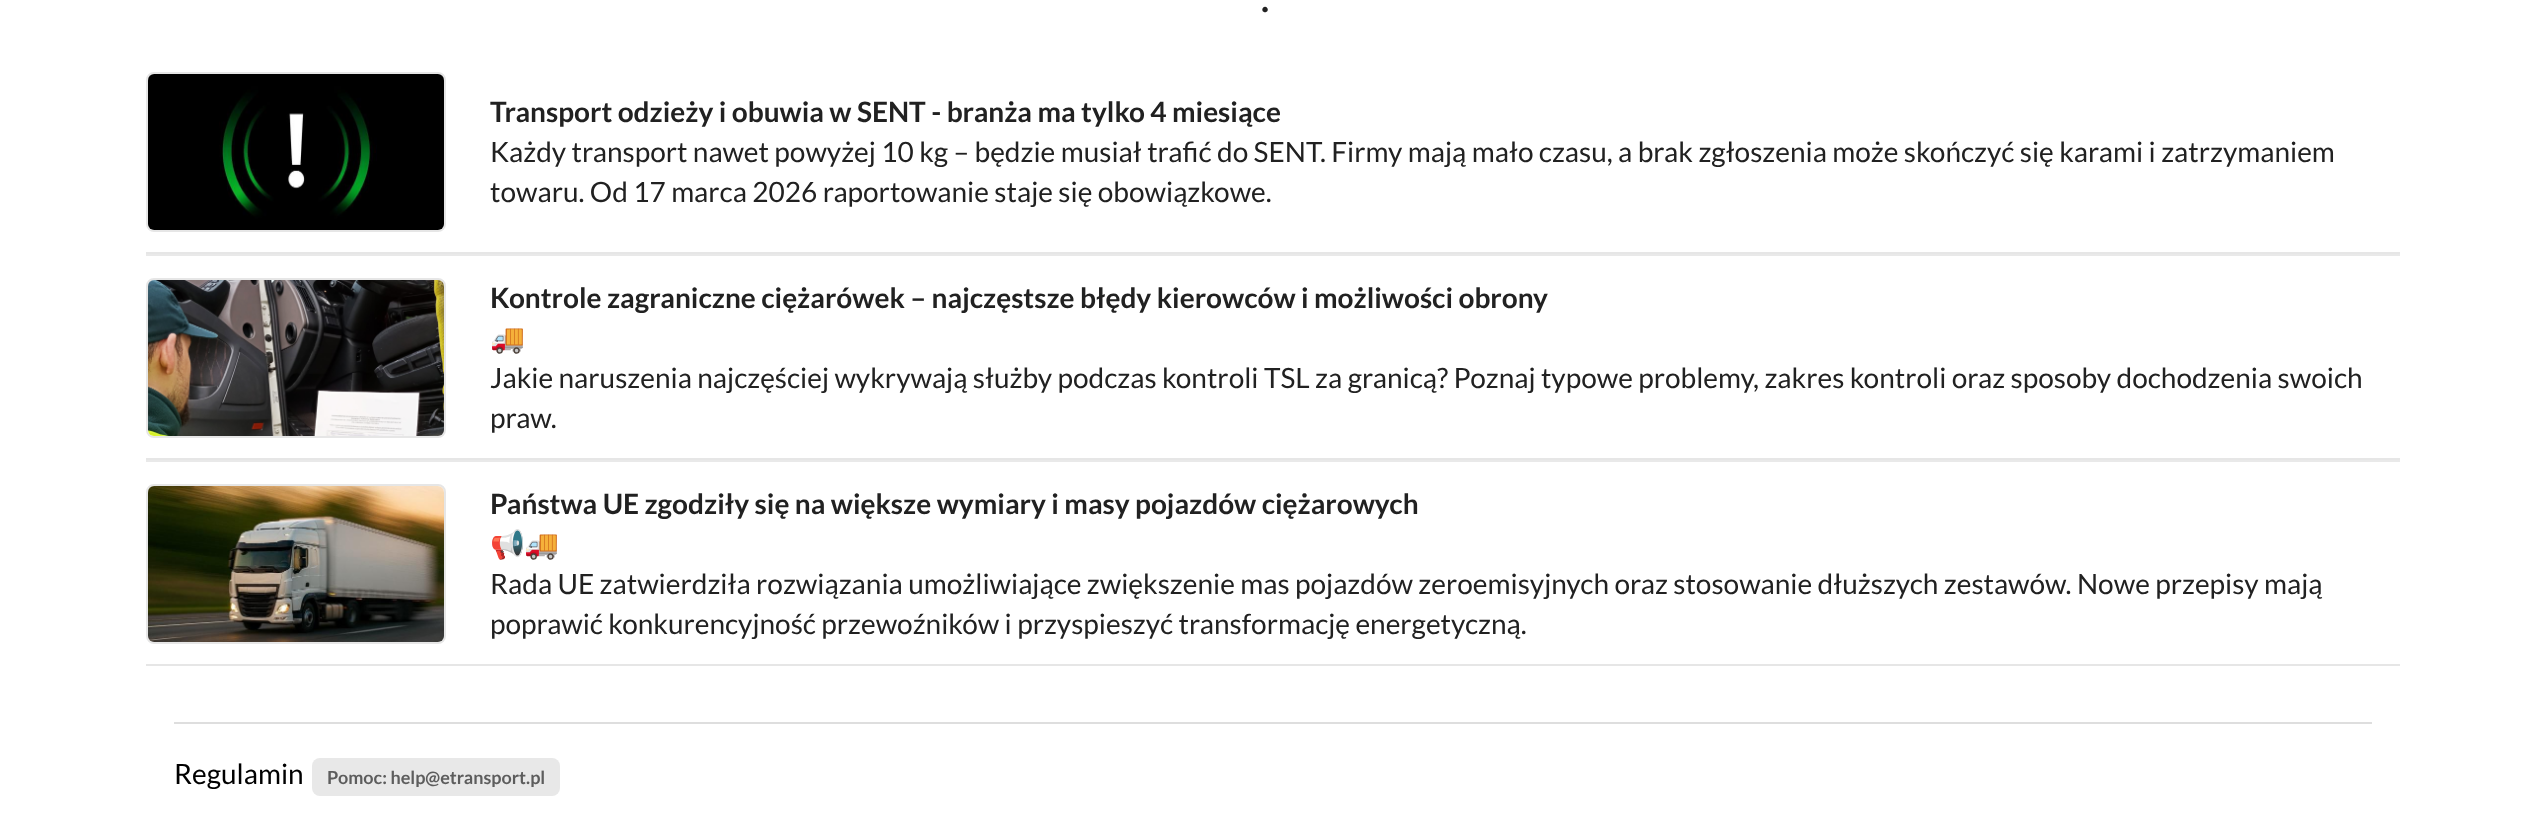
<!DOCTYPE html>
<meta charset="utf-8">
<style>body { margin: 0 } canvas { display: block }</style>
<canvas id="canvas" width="2546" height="824"></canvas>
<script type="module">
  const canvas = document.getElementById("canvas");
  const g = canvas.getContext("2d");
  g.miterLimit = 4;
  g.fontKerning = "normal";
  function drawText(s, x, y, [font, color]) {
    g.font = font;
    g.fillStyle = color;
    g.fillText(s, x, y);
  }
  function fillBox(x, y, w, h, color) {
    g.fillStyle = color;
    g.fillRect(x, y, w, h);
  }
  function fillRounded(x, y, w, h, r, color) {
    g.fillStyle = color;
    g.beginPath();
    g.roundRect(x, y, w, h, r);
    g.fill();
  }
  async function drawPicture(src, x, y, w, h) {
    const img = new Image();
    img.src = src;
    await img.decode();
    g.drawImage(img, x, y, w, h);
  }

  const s1 = ["bold 36px Lato", "#212121"];
  const s2 = ["bold 28px Lato", "#212121"];
  const s3 = ["28px Lato", "#212121"];
  const s4 = ["28px Noto Color Emoji", "#212121"];
  const s5 = ["28px Lato", "#000000"];
  const s6 = ["bold 18px Lato", "#5D5D5D"];

  fillBox(0, 0, 2546, 824, "#FFFFFF");
  drawText(".", 1261, 12, s1);
  fillBox(146, 252, 2254, 2, "#E6E6E6");
  g.beginPath();
  g.roundRect(147, 73, 298, 158, 7);
  g.strokeStyle = "#E6E6E6";
  g.lineWidth = 2;
  g.stroke();
  await drawPicture("pic1.png", 148, 74, 296, 156);
  drawText("Transport odzieży i obuwia w SENT - branża ma tylko 4 miesiące", 490, 122, s2);
  drawText("Każdy transport nawet powyżej 10 kg – będzie musiał trafić do SENT. Firmy mają mało czasu, a brak zgłoszenia może skończyć się karami i zatrzymaniem", 490, 162, s3);
  drawText("towaru. Od 17 marca 2026 raportowanie staje się obowiązkowe.", 490, 202, s3);
  fillBox(146, 458, 2254, 2, "#E6E6E6");
  fillBox(146, 254, 2254, 2, "#E9E9E9");
  g.beginPath();
  g.roundRect(147, 279, 298, 158, 7);
  g.stroke();
  await drawPicture("pic2.png", 148, 280, 296, 156);
  drawText("Kontrole zagraniczne ciężarówek – najczęstsze błędy kierowców i możliwości obrony", 490, 308, s2);
  drawText("🚚", 490, 348, s4);
  drawText("Jakie naruszenia najczęściej wykrywają służby podczas kontroli TSL za granicą? Poznaj typowe problemy, zakres kontroli oraz sposoby dochodzenia swoich", 490, 388, s3);
  drawText("praw.", 490, 428, s3);
  fillBox(146, 664, 2254, 2, "#E6E6E6");
  fillBox(146, 460, 2254, 2, "#E9E9E9");
  g.beginPath();
  g.roundRect(147, 485, 298, 158, 7);
  g.stroke();
  await drawPicture("pic3.png", 148, 486, 296, 156);
  drawText("Państwa UE zgodziły się na większe wymiary i masy pojazdów ciężarowych", 490, 514, s2);
  drawText("📢🚚", 490, 554, s4);
  drawText("Rada UE zatwierdziła rozwiązania umożliwiające zwiększenie mas pojazdów zeroemisyjnych oraz stosowanie dłuższych zestawów. Nowe przepisy mają", 490, 594, s3);
  drawText("poprawić konkurencyjność przewoźników i przyspieszyć transformację energetyczną.", 490, 634, s3);
  fillBox(174, 722, 2198, 2, "#DEDEDE");
  drawText("Regulamin", 174, 784, s5);
  fillRounded(312, 758, 248, 38, 8, "#E8E8E8");
  drawText("Pomoc: help@etransport.pl", 327, 784, s6);
</script>
